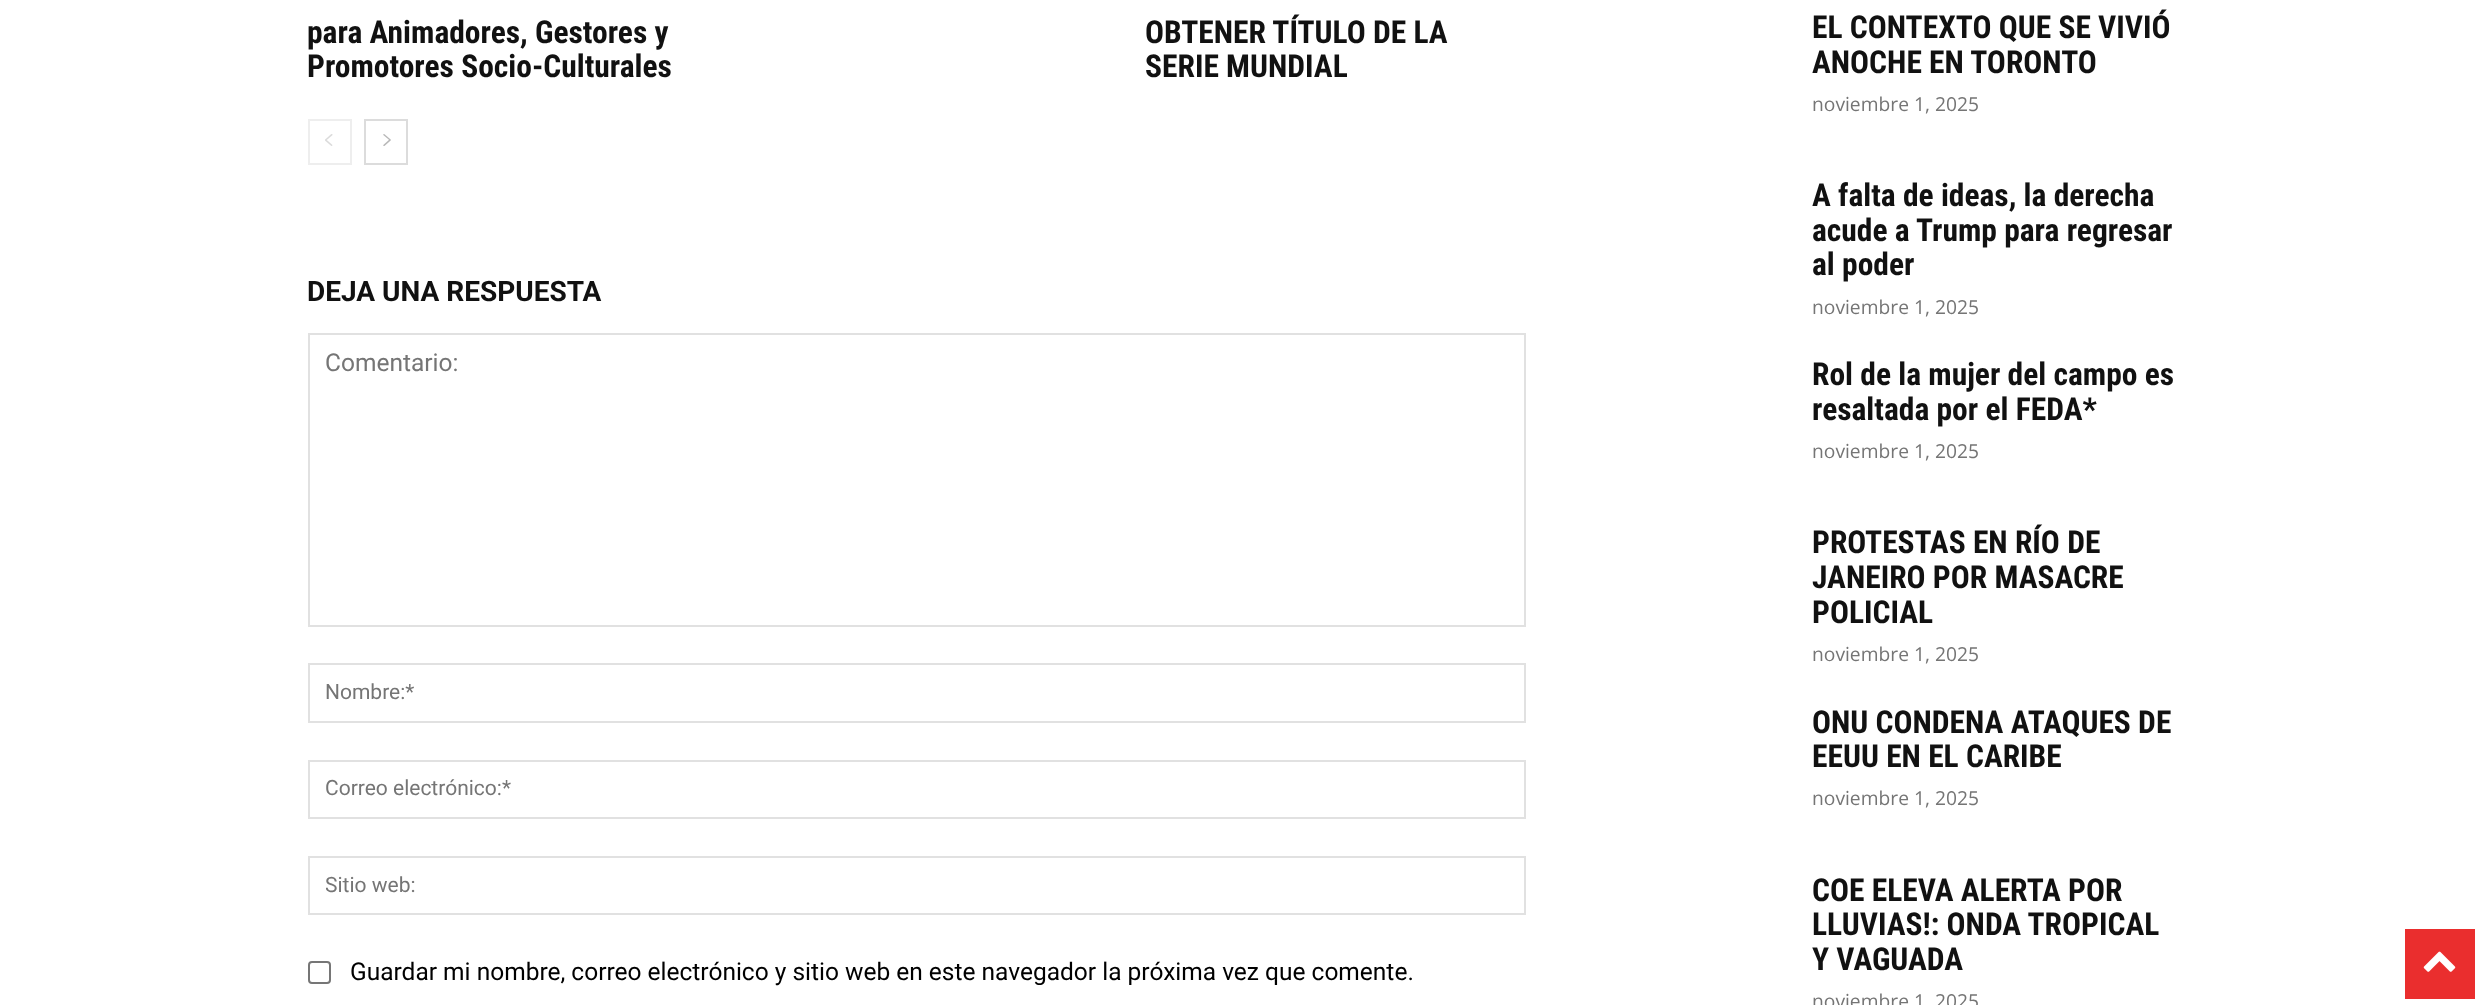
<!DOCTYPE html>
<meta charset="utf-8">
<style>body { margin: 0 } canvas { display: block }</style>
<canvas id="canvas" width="2482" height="1005"></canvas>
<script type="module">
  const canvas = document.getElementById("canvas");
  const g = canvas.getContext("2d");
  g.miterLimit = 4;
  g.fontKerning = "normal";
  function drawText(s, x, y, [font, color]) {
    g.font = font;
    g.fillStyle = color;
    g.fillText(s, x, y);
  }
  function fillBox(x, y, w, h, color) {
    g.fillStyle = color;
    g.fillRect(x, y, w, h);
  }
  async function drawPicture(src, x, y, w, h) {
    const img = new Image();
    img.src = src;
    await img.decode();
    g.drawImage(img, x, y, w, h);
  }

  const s1 = ["bold 31.5px Roboto Condensed", "#111111"];
  const s2 = ["bold 28px Roboto", "#111111"];
  const s3 = ["24.5px Roboto", "#757575"];
  const s4 = ["21px Roboto", "#757575"];
  const s5 = ["24.5px Roboto", "#000000"];
  const s6 = ["19.25px Open Sans", "#757575"];

  fillBox(0, 0, 2482, 1005, "#FFFFFF");
  drawText("para Animadores, Gestores y", 307, 43, s1);
  drawText("Promotores Socio-Culturales", 307, 77, s1);
  drawText("OBTENER TÍTULO DE LA", 1145, 43, s1);
  drawText("SERIE MUNDIAL", 1145, 77, s1);
  g.strokeStyle = "#EEEEEE";
  g.lineWidth = 2;
  g.strokeRect(309, 120, 42, 44);
  await drawPicture("pic1.png", 325, 134, 8, 12);
  g.strokeStyle = "#DCDCDC";
  g.strokeRect(365, 120, 42, 44);
  await drawPicture("pic2.png", 383, 134, 8, 12);
  drawText("DEJA UNA RESPUESTA", 307, 301, s2);
  g.strokeStyle = "#E1E1E1";
  g.strokeRect(309, 334, 1216, 292);
  drawText("Comentario:", 325, 371, s3);
  g.strokeRect(309, 664, 1216, 58);
  drawText("Nombre:*", 325, 699, s4);
  g.strokeRect(309, 761, 1216, 57);
  g.save();
  g.beginPath();
  g.rect(326, 777, 1183, 25);
  g.clip();
  drawText("Correo electrónico:*", 325, 795, s4);
  g.restore();
  g.strokeRect(309, 857, 1216, 57);
  g.save();
  g.beginPath();
  g.rect(326, 873, 1183, 25);
  g.clip();
  drawText("Sitio web:", 325, 892, s4);
  g.restore();
  g.beginPath();
  g.roundRect(309, 962, 21, 21, 3);
  g.strokeStyle = "#767676";
  g.stroke();
  drawText("Guardar mi nombre, correo electrónico y sitio web en este navegador la próxima vez que comente.", 350, 980, s5);
  drawText("EL CONTEXTO QUE SE VIVIÓ", 1812, 38, s1);
  drawText("ANOCHE EN TORONTO", 1812, 73, s1);
  drawText("noviembre 1, 2025", 1812, 111, s6);
  drawText("A falta de ideas, la derecha", 1812, 206, s1);
  drawText("acude a Trump para regresar", 1812, 241, s1);
  drawText("al poder", 1812, 275, s1);
  drawText("noviembre 1, 2025", 1812, 314, s6);
  drawText("Rol de la mujer del campo es", 1812, 385, s1);
  drawText("resaltada por el FEDA*", 1812, 420, s1);
  drawText("noviembre 1, 2025", 1812, 458, s6);
  drawText("PROTESTAS EN RÍO DE", 1812, 553, s1);
  drawText("JANEIRO POR MASACRE", 1812, 588, s1);
  drawText("POLICIAL", 1812, 623, s1);
  drawText("noviembre 1, 2025", 1812, 661, s6);
  drawText("ONU CONDENA ATAQUES DE", 1812, 733, s1);
  drawText("EEUU EN EL CARIBE", 1812, 767, s1);
  drawText("noviembre 1, 2025", 1812, 805, s6);
  drawText("COE ELEVA ALERTA POR", 1812, 901, s1);
  drawText("LLUVIAS!: ONDA TROPICAL", 1812, 935, s1);
  drawText("Y VAGUADA", 1812, 970, s1);
  drawText("noviembre 1, 2025", 1812, 1008, s6);
  fillBox(2405, 929, 70, 70, "#EA2E2E");
  await drawPicture("pic3.png", 2423, 951, 33, 21);
</script>
